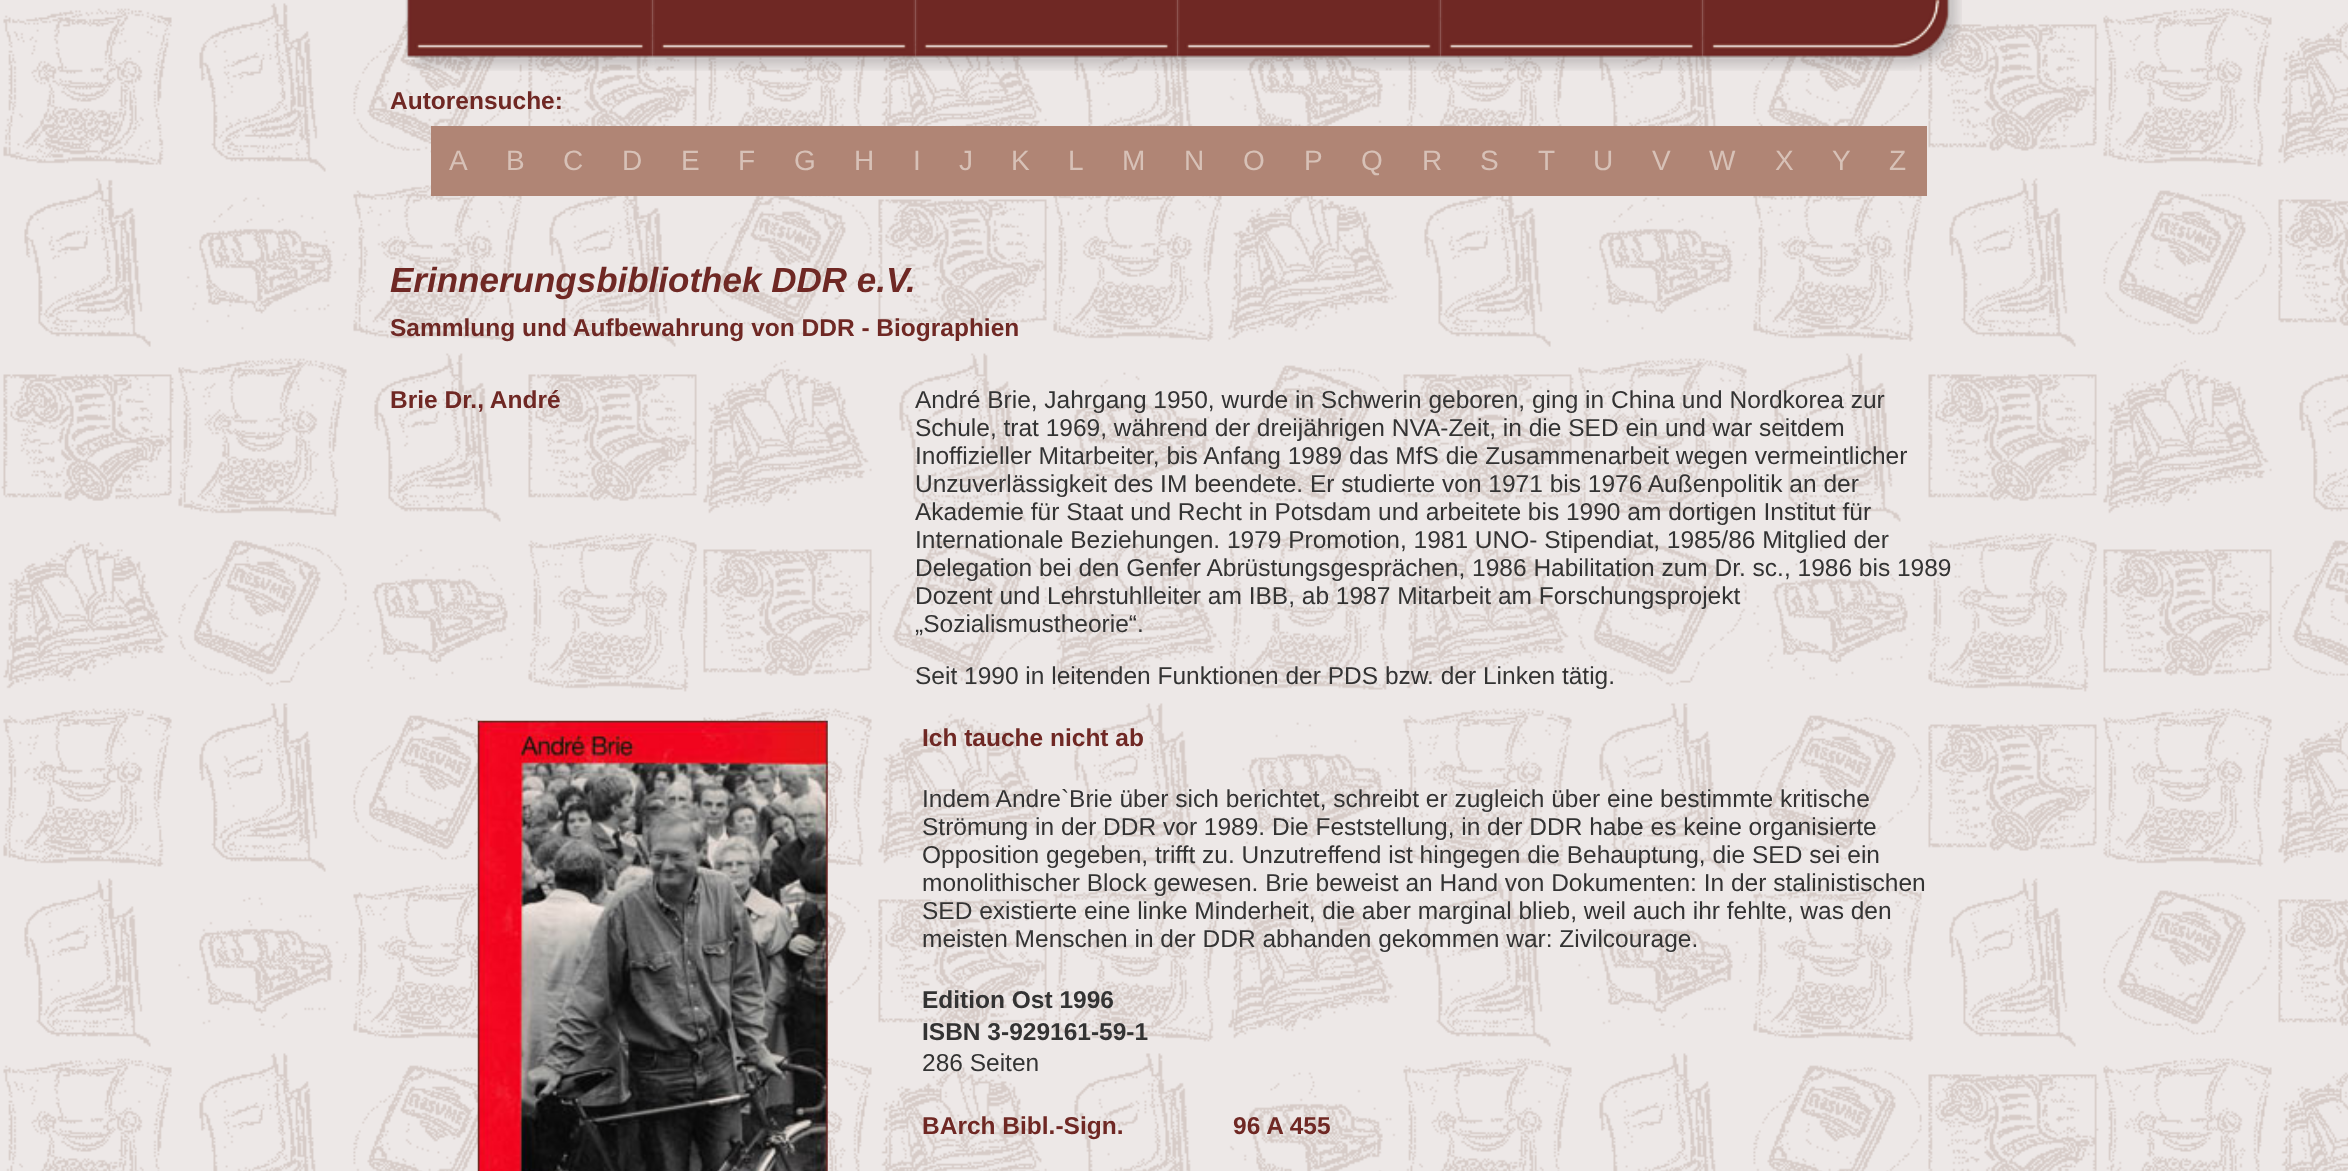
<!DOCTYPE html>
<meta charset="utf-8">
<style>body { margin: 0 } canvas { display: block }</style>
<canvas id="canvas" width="2348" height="1171"></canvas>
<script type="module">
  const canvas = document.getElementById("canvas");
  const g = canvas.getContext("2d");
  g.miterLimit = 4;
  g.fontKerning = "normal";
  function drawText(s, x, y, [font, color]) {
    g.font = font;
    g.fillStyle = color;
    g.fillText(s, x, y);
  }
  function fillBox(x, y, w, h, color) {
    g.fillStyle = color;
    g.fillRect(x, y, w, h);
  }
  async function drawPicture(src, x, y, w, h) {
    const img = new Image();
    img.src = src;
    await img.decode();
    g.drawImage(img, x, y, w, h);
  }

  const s1 = ["bold 24.5px Liberation Sans", "#6F2824"];
  const s2 = ["28px Liberation Sans", "#D7C1B7"];
  const s3 = ["italic bold 35px Liberation Sans", "#6F2824"];
  const s4 = ["24.5px Liberation Sans", "#333333"];
  const s5 = ["bold 24.5px Liberation Sans", "#333333"];

  fillBox(0, 0, 2348, 1171, "#FFFFFF");
  await drawPicture("pic1.png", 0, 0, 2348, 1171);
  await drawPicture("pic2.png", 405, 0, 248, 71);
  await drawPicture("pic3.png", 652, 0, 264, 71);
  await drawPicture("pic4.png", 915, 0, 263, 71);
  await drawPicture("pic5.png", 1177, 0, 264, 71);
  await drawPicture("pic6.png", 1440, 0, 263, 71);
  await drawPicture("pic7.png", 1702, 0, 260, 71);
  drawText("Autorensuche:", 390, 109, s1);
  fillBox(431, 126, 1496, 70, "#B08575");
  drawText("A", 449, 170, s2);
  drawText("B", 506, 170, s2);
  drawText("C", 563, 170, s2);
  drawText("D", 622, 170, s2);
  drawText("E", 681, 170, s2);
  drawText("F", 738, 170, s2);
  drawText("G", 794, 170, s2);
  drawText("H", 854, 170, s2);
  drawText("I", 913, 170, s2);
  drawText("J", 959, 170, s2);
  drawText("K", 1011, 170, s2);
  drawText("L", 1068, 170, s2);
  drawText("M", 1122, 170, s2);
  drawText("N", 1184, 170, s2);
  drawText("O", 1243, 170, s2);
  drawText("P", 1304, 170, s2);
  drawText("Q", 1361, 170, s2);
  drawText("R", 1422, 170, s2);
  drawText("S", 1480, 170, s2);
  drawText("T", 1538, 170, s2);
  drawText("U", 1593, 170, s2);
  drawText("V", 1652, 170, s2);
  drawText("W", 1709, 170, s2);
  drawText("X", 1775, 170, s2);
  drawText("Y", 1832, 170, s2);
  drawText("Z", 1889, 170, s2);
  drawText("Erinnerungsbibliothek DDR e.V.", 390, 292, s3);
  drawText("Sammlung und Aufbewahrung von DDR - Biographien", 390, 336, s1);
  drawText("Brie Dr., André", 390, 408, s1);
  drawText("André Brie, Jahrgang 1950, wurde in Schwerin geboren, ging in China und Nordkorea zur", 915, 408, s4);
  drawText("Schule, trat 1969, während der dreijährigen NVA-Zeit, in die SED ein und war seitdem", 915, 436, s4);
  drawText("Inoffizieller Mitarbeiter, bis Anfang 1989 das MfS die Zusammenarbeit wegen vermeintlicher", 915, 464, s4);
  drawText("Unzuverlässigkeit des IM beendete. Er studierte von 1971 bis 1976 Außenpolitik an der", 915, 492, s4);
  drawText("Akademie für Staat und Recht in Potsdam und arbeitete bis 1990 am dortigen Institut für", 915, 520, s4);
  drawText("Internationale Beziehungen. 1979 Promotion, 1981 UNO- Stipendiat, 1985/86 Mitglied der", 915, 548, s4);
  drawText("Delegation bei den Genfer Abrüstungsgesprächen, 1986 Habilitation zum Dr. sc., 1986 bis 1989", 915, 576, s4);
  drawText("Dozent und Lehrstuhlleiter am IBB, ab 1987 Mitarbeit am Forschungsprojekt", 915, 604, s4);
  drawText("„Sozialismustheorie“.", 915, 632, s4);
  drawText("Seit 1990 in leitenden Funktionen der PDS bzw. der Linken tätig.", 915, 684, s4);
  await drawPicture("pic8.png", 477, 720, 351, 451);
  drawText("Ich tauche nicht ab", 922, 746, s1);
  drawText("Indem Andre`Brie über sich berichtet, schreibt er zugleich über eine bestimmte kritische", 922, 807, s4);
  drawText("Strömung in der DDR vor 1989. Die Feststellung, in der DDR habe es keine organisierte", 922, 835, s4);
  drawText("Opposition gegeben, trifft zu. Unzutreffend ist hingegen die Behauptung, die SED sei ein", 922, 863, s4);
  drawText("monolithischer Block gewesen. Brie beweist an Hand von Dokumenten: In der stalinistischen", 922, 891, s4);
  drawText("SED existierte eine linke Minderheit, die aber marginal blieb, weil auch ihr fehlte, was den", 922, 919, s4);
  drawText("meisten Menschen in der DDR abhanden gekommen war: Zivilcourage.", 922, 947, s4);
  drawText("Edition Ost 1996", 922, 1008, s5);
  drawText("ISBN 3-929161-59-1", 922, 1040, s5);
  drawText("286 Seiten", 922, 1071, s4);
  drawText("BArch Bibl.-Sign.", 922, 1134, s1);
  drawText("96 A 455", 1233, 1134, s1);
</script>
